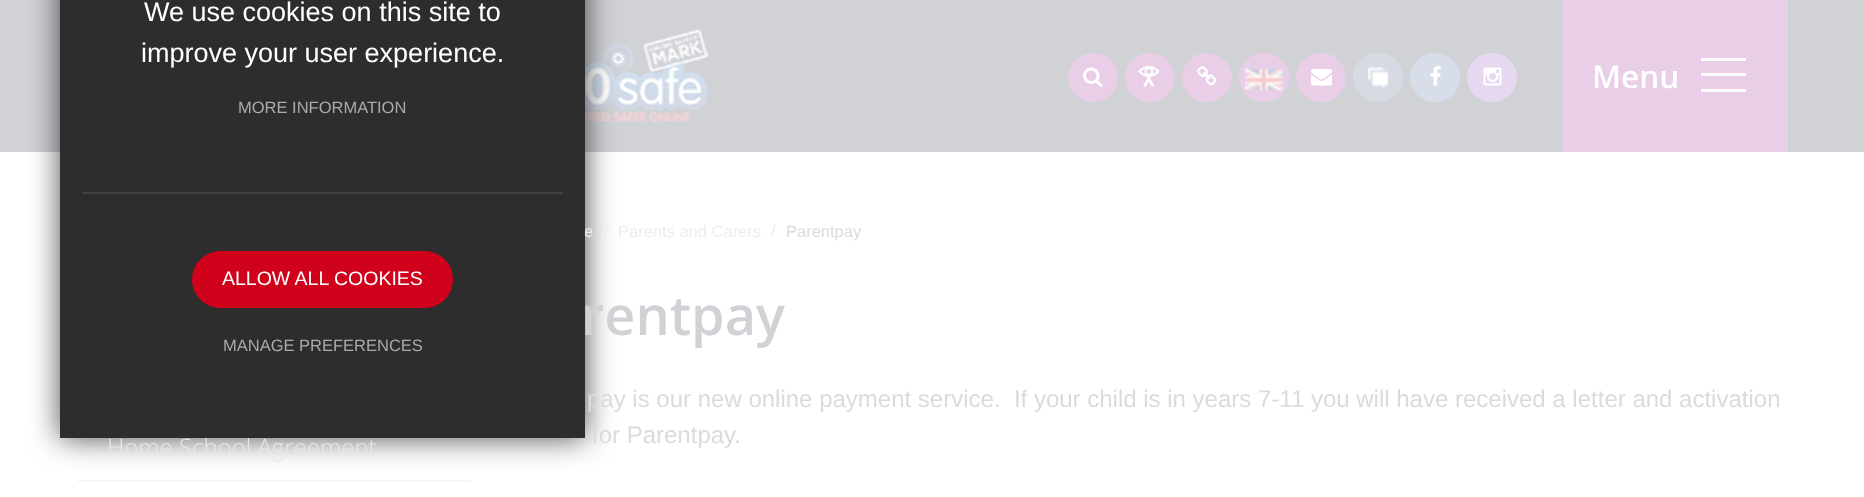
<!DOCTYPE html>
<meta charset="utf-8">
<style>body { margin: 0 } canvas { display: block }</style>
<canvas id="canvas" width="1864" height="497"></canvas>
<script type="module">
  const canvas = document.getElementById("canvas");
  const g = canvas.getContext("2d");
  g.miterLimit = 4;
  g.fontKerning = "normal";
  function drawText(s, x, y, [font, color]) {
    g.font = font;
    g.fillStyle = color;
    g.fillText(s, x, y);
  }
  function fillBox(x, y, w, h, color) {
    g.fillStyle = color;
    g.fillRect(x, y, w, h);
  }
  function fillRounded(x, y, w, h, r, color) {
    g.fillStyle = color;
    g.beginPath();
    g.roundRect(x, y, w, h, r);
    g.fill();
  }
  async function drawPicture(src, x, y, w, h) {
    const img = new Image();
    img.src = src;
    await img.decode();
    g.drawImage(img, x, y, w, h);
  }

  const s1 = ["300 24px Open Sans", "#E7E7E7"];
  const s2 = ["16.5px Liberation Sans", "#EDEDED"];
  const s3 = ["600 54px Open Sans", "#D0D2D6"];
  const s4 = ["27px Liberation Sans", "#FFFFFF"];
  const s5 = ["16.5px Liberation Sans", "#ABABAB"];
  const s6 = ["19.5px Liberation Sans", "#FFFFFF"];
  const s7 = ["600 31.5px Open Sans", "#FFFFFF"];
  const s8 = ["16.5px Liberation Sans", "#DBDBDB"];
  const s9 = ["24px Liberation Sans", "#DBDBDB"];

  fillBox(0, 0, 1864, 497, "#FFFFFF");
  fillBox(0, 0, 1864, 152, "#D0D2D6");
  await drawPicture("pic1.png", 585, 30, 124, 92);
  fillBox(78, 480, 393, 2, "#F6F6F6");
  g.fillStyle = "rgba(0, 0, 0, 0.7)";
  g.filter = "blur(15px)";
  g.beginPath();
  g.rect(60, -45, 525, 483);
  g.fill();
  g.filter = "none";
  drawText("Home School Agreement", 107, 456, s1);
  drawText("e", 584, 237, s2);
  drawText("rentpay", 581, 335, s3);
  fillBox(60, 0, 525, 438, "#2D2D2D");
  fillBox(83, 192, 480, 2, "#424242");
  drawText("We use cookies on this site to", 144, 21, s4);
  drawText("improve your user experience.", 141, 62, s4);
  drawText("MORE INFORMATION", 238, 113, s5);
  fillRounded(192, 251, 261, 57, 28.5, "#D0011B");
  drawText("ALLOW ALL COOKIES", 222, 285, s6);
  drawText("MANAGE PREFERENCES", 223, 351, s5);
  fillRounded(1068, 53, 50, 49, 24.5, "#E8CEE6");
  await drawPicture("pic2.png", 1083, 67, 20, 20);
  fillRounded(1125, 53, 50, 49, 24.5, "#E8CEE6");
  await drawPicture("pic3.png", 1138, 66, 22, 21);
  fillRounded(1182, 53, 50, 49, 24.5, "#E8CEE6");
  await drawPicture("pic4.png", 1197, 66, 20, 20);
  fillRounded(1239, 53, 50, 49, 24.5, "#E8CEE6");
  await drawPicture("pic5.png", 1245, 68, 38, 23);
  fillRounded(1296, 53, 50, 49, 24.5, "#E8CEE6");
  await drawPicture("pic6.png", 1311, 69, 21, 17);
  fillRounded(1353, 53, 50, 49, 24.5, "#D6DBE3");
  await drawPicture("pic7.png", 1368, 67, 21, 22);
  fillRounded(1410, 53, 50, 49, 24.5, "#D7DEEA");
  await drawPicture("pic8.png", 1430, 66, 11, 20);
  fillRounded(1467, 53, 50, 49, 24.5, "#E6D8F0");
  await drawPicture("pic9.png", 1483, 67, 19, 19);
  fillBox(1562, 0, 226, 152, "#E8CEE6");
  drawText("Menu", 1592, 88, s7);
  g.beginPath();
  g.moveTo(1701, 61);
  g.lineTo(1701, 58);
  g.lineTo(1746, 58);
  g.lineTo(1746, 61);
  g.closePath();
  g.moveTo(1701, 76);
  g.lineTo(1701, 73);
  g.lineTo(1746, 73);
  g.lineTo(1746, 76);
  g.closePath();
  g.moveTo(1701, 92);
  g.lineTo(1701, 89);
  g.lineTo(1746, 89);
  g.lineTo(1746, 92);
  g.closePath();
  g.fill();
  drawText("/", 604, 237, s2);
  drawText("Parents and Carers", 618, 237, s2);
  drawText("/", 771, 237, s2);
  drawText("Parentpay", 786, 237, s8);
  drawText("pay is our new online payment service.  If your child is in years 7-11 you will have received a letter and activation", 587, 407, s9);
  drawText("for Parentpay.", 592, 443, s9);
</script>
